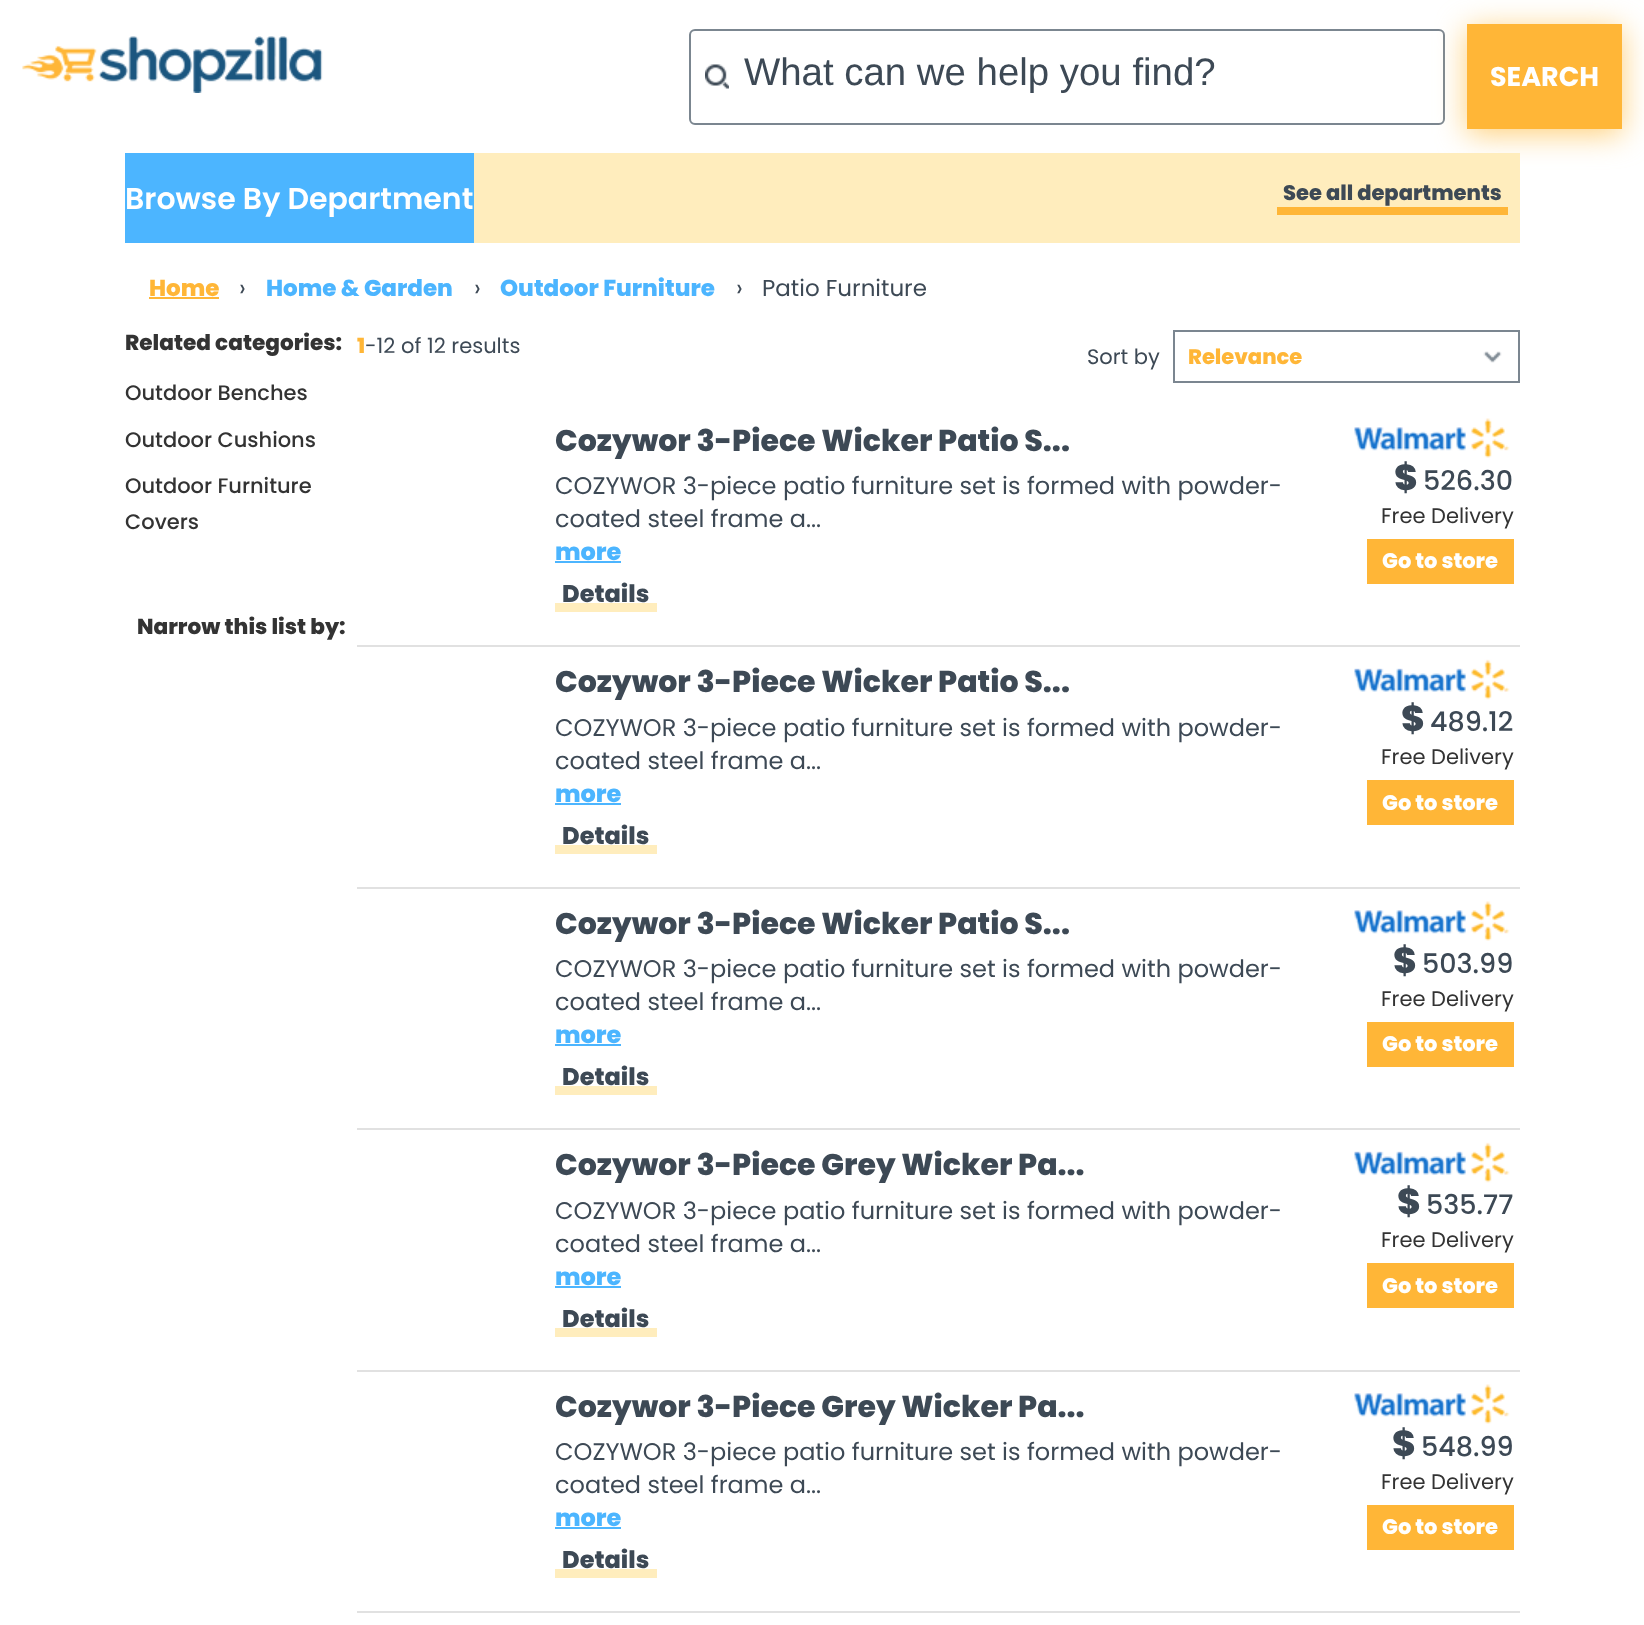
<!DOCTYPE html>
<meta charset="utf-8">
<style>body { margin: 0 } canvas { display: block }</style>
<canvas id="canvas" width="1644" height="1625"></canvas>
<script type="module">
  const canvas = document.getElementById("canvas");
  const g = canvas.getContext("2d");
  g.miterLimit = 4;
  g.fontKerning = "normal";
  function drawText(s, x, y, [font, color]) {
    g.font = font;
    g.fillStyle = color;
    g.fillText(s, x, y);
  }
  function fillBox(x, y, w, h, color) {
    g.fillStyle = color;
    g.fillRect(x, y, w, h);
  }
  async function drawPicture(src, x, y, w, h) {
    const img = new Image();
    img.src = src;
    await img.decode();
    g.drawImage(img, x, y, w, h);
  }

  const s1 = ["38.4px Liberation Sans", "#3D4955"];
  const s2 = ["bold 27px Poppins", "#FFFFFF"];
  const s3 = ["600 30px Poppins", "#FFFFFF"];
  const s4 = ["800 21px Poppins", "#3D4955"];
  const s5 = ["800 23px Poppins", "#FFB637"];
  const s6 = ["24px Poppins", "#3D4955"];
  const s7 = ["800 23px Poppins", "#4CB5FF"];
  const s8 = ["23px Poppins", "#3D4955"];
  const s9 = ["800 21.6px Poppins", "#333333"];
  const s10 = ["500 21px Poppins", "#333333"];
  const s11 = ["800 21px Poppins", "#FFB637"];
  const s12 = ["21px Poppins", "#3D4955"];
  const s13 = ["800 30px Poppins", "#3D4955"];
  const s14 = ["800 24px Poppins", "#4CB5FF"];
  const s15 = ["800 24px Poppins", "#3D4955"];
  const s16 = ["800 36px Poppins", "#3D4955"];
  const s17 = ["500 27px Poppins", "#3D4955"];
  const s18 = ["21px Poppins", "#333333"];
  const s19 = ["800 21px Poppins", "#FFFFFF"];

  fillBox(0, 0, 1644, 1625, "#FFFFFF");
  await drawPicture("pic1.png", 22, 36, 301, 57);
  await drawPicture("pic2.png", 705, 64, 24, 25);
  g.beginPath();
  g.roundRect(690, 30, 754, 94, 5);
  g.strokeStyle = "#7B8690";
  g.lineWidth = 2;
  g.stroke();
  drawText("What can we help you find?", 744, 85, s1);
  g.fillStyle = "#FFCF77";
  g.filter = "blur(15px)";
  g.beginPath();
  g.rect(1467, 29, 155, 105);
  g.fill();
  g.filter = "none";
  fillBox(1467, 24, 155, 105, "#FFB637");
  drawText("SEARCH", 1490, 86, s2);
  fillBox(125, 153, 349, 90, "#4CB5FF");
  drawText("Browse By Department", 125, 209, s3);
  fillBox(474, 153, 1046, 90, "#FFEDBD");
  drawText("See all departments", 1283, 200, s4);
  fillBox(1277, 207, 231, 8, "#FFB637");
  drawText("Home", 149, 296, s5);
  fillBox(149, 297, 70, 2, "#FFB637");
  drawText("›", 239, 296, s6);
  drawText("Home & Garden", 266, 296, s7);
  drawText("›", 474, 296, s6);
  drawText("Outdoor Furniture", 500, 296, s7);
  drawText("›", 736, 296, s6);
  drawText("Patio Furniture", 762, 296, s8);
  drawText("Related categories:", 125, 350, s9);
  drawText("Outdoor Benches", 125, 400, s10);
  drawText("Outdoor Cushions", 125, 447, s10);
  drawText("Outdoor Furniture", 125, 493, s10);
  drawText("Covers", 125, 529, s10);
  drawText("Narrow this list by:", 137, 634, s9);
  drawText("1", 357, 353, s11);
  drawText("-12 of 12 results", 365, 353, s12);
  drawText("Sort by", 1087, 364, s12);
  await drawPicture("pic3.png", 1483, 351, 19, 12);
  g.strokeRect(1174, 331, 345, 51);
  drawText("Relevance", 1188, 364, s11);
  fillBox(357, 645, 1163, 2, "#E1E1E1");
  drawText("Cozywor 3-Piece Wicker Patio S...", 555, 451, s13);
  drawText("COZYWOR 3-piece patio furniture set is formed with powder-", 555, 494, s6);
  drawText("coated steel frame a...", 555, 527, s6);
  drawText("more", 555, 560, s14);
  fillBox(555, 561, 66, 2, "#4CB5FF");
  fillBox(555, 603, 102, 9, "#FFEDBD");
  drawText("Details", 562, 602, s15);
  await drawPicture("pic4.png", 1354, 418, 156, 40);
  drawText("$", 1394, 490, s16);
  drawText("526.30", 1423, 490, s17);
  drawText("Free Delivery", 1381, 523, s18);
  fillBox(1367, 539, 147, 45, "#FFB637");
  drawText("Go to store", 1382, 568, s19);
  fillBox(357, 887, 1163, 2, "#E1E1E1");
  drawText("Cozywor 3-Piece Wicker Patio S...", 555, 692, s13);
  drawText("COZYWOR 3-piece patio furniture set is formed with powder-", 555, 736, s6);
  drawText("coated steel frame a...", 555, 769, s6);
  drawText("more", 555, 802, s14);
  fillBox(555, 803, 66, 2, "#4CB5FF");
  fillBox(555, 845, 102, 9, "#FFEDBD");
  drawText("Details", 562, 844, s15);
  await drawPicture("pic5.png", 1354, 659, 156, 41);
  drawText("$", 1401, 731, s16);
  drawText("489.12", 1430, 731, s17);
  drawText("Free Delivery", 1381, 764, s18);
  fillBox(1367, 780, 147, 45, "#FFB637");
  drawText("Go to store", 1382, 810, s19);
  fillBox(357, 1128, 1163, 2, "#E1E1E1");
  drawText("Cozywor 3-Piece Wicker Patio S...", 555, 934, s13);
  drawText("COZYWOR 3-piece patio furniture set is formed with powder-", 555, 977, s6);
  drawText("coated steel frame a...", 555, 1010, s6);
  drawText("more", 555, 1043, s14);
  fillBox(555, 1044, 66, 2, "#4CB5FF");
  fillBox(555, 1086, 102, 9, "#FFEDBD");
  drawText("Details", 562, 1085, s15);
  await drawPicture("pic4.png", 1354, 901, 156, 40);
  drawText("$", 1393, 973, s16);
  drawText("503.99", 1422, 973, s17);
  drawText("Free Delivery", 1381, 1006, s18);
  fillBox(1367, 1022, 147, 45, "#FFB637");
  drawText("Go to store", 1382, 1051, s19);
  fillBox(357, 1370, 1163, 2, "#E1E1E1");
  drawText("Cozywor 3-Piece Grey Wicker Pa...", 555, 1175, s13);
  drawText("COZYWOR 3-piece patio furniture set is formed with powder-", 555, 1219, s6);
  drawText("coated steel frame a...", 555, 1252, s6);
  drawText("more", 555, 1285, s14);
  fillBox(555, 1286, 66, 2, "#4CB5FF");
  fillBox(555, 1328, 102, 9, "#FFEDBD");
  drawText("Details", 562, 1327, s15);
  await drawPicture("pic5.png", 1354, 1142, 156, 41);
  drawText("$", 1397, 1214, s16);
  drawText("535.77", 1426, 1214, s17);
  drawText("Free Delivery", 1381, 1247, s18);
  fillBox(1367, 1263, 147, 45, "#FFB637");
  drawText("Go to store", 1382, 1293, s19);
  fillBox(357, 1611, 1163, 2, "#E1E1E1");
  drawText("Cozywor 3-Piece Grey Wicker Pa...", 555, 1417, s13);
  drawText("COZYWOR 3-piece patio furniture set is formed with powder-", 555, 1460, s6);
  drawText("coated steel frame a...", 555, 1493, s6);
  drawText("more", 555, 1526, s14);
  fillBox(555, 1527, 66, 2, "#4CB5FF");
  fillBox(555, 1569, 102, 9, "#FFEDBD");
  drawText("Details", 562, 1568, s15);
  await drawPicture("pic4.png", 1354, 1384, 156, 40);
  drawText("$", 1392, 1456, s16);
  drawText("548.99", 1421, 1456, s17);
  drawText("Free Delivery", 1381, 1489, s18);
  fillBox(1367, 1505, 147, 45, "#FFB637");
  drawText("Go to store", 1382, 1534, s19);
</script>
